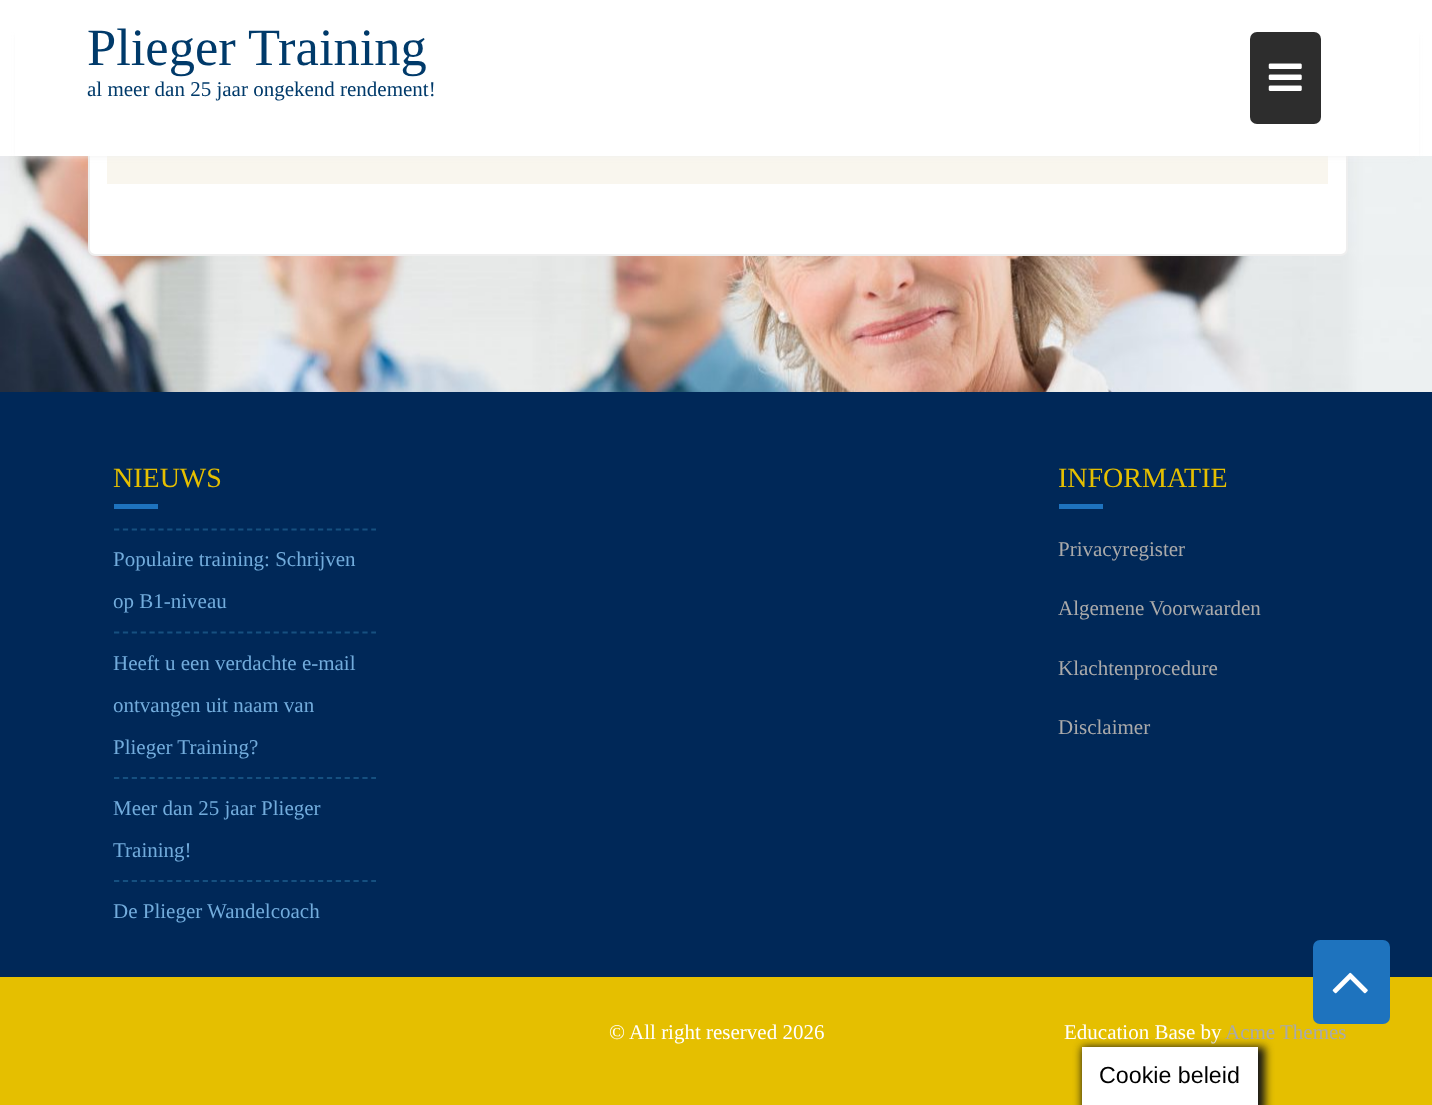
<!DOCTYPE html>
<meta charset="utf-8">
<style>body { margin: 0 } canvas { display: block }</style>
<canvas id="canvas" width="1432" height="1105"></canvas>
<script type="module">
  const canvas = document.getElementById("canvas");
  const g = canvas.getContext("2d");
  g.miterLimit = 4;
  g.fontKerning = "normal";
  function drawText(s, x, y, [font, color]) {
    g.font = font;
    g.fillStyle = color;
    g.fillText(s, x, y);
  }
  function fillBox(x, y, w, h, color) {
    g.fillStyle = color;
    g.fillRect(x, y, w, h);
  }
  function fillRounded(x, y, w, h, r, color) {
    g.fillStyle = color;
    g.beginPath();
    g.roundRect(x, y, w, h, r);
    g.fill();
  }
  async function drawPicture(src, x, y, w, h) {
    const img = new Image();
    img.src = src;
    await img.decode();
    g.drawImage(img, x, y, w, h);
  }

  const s1 = ["52.5px Liberation Serif", "#003A6A"];
  const s2 = ["21px Liberation Serif", "#003A6A"];
  const s3 = ["28px Liberation Serif", "#E5BF00"];
  const s4 = ["21px Liberation Serif", "#72ACDC"];
  const s5 = ["21px Liberation Serif", "#AAAAAA"];
  const s6 = ["21px Liberation Serif", "#FFFFFF"];
  const s7 = ["23.25px Liberation Sans", "#000000"];

  fillBox(0, 0, 1432, 1105, "#FFFFFF");
  await drawPicture("pic1.png", 0, 156, 1432, 236);
  g.beginPath();
  g.roundRect(89, -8, 1258, 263, 6);
  g.fill();
  g.strokeStyle = "#EEEEEE";
  g.lineWidth = 2;
  g.stroke();
  fillBox(107, 156, 1221, 28, "#F9F6EE");
  g.fillStyle = "rgba(238, 238, 238, 0.9)";
  g.filter = "blur(3.5px)";
  g.beginPath();
  g.rect(18, 35, 1398, 121);
  g.fill();
  g.filter = "none";
  fillBox(15, 0, 1404, 156, "#FFFFFF");
  drawText("Plieger Training", 87, 65, s1);
  fillRounded(1250, 32, 71, 92, 7, "#2D2D2D");
  await drawPicture("pic2.png", 1268, 63, 34, 28);
  drawText("al meer dan 25 jaar ongekend rendement!", 87, 96, s2);
  fillBox(0, 392, 1432, 585, "#002858");
  drawText("NIEUWS", 113, 487, s3);
  fillBox(114, 504, 44, 5, "#1E73BE");
  g.beginPath();
  g.moveTo(114, 529.5);
  g.lineTo(376, 529.5);
  g.strokeStyle = "#165080";
  g.lineWidth = 1.8;
  g.setLineDash([5.25, 3.62]);
  g.stroke();
  drawText("Populaire training: Schrijven", 113, 566, s4);
  drawText("op B1-niveau", 113, 608, s4);
  g.beginPath();
  g.moveTo(114, 632.5);
  g.lineTo(376, 632.5);
  g.stroke();
  drawText("Heeft u een verdachte e-mail", 113, 670, s4);
  drawText("ontvangen uit naam van", 113, 712, s4);
  drawText("Plieger Training?", 113, 754, s4);
  g.beginPath();
  g.moveTo(114, 778);
  g.lineTo(376, 778);
  g.stroke();
  drawText("Meer dan 25 jaar Plieger", 113, 815, s4);
  drawText("Training!", 113, 857, s4);
  g.beginPath();
  g.moveTo(114, 881);
  g.lineTo(376, 881);
  g.stroke();
  drawText("De Plieger Wandelcoach", 113, 918, s4);
  drawText("INFORMATIE", 1058, 487, s3);
  fillBox(1059, 504, 44, 5, "#1E73BE");
  drawText("Privacyregister", 1058, 556, s5);
  drawText("Algemene Voorwaarden", 1058, 615, s5);
  drawText("Klachtenprocedure", 1058, 675, s5);
  drawText("Disclaimer", 1058, 734, s5);
  fillBox(0, 977, 1432, 128, "#E5BF00");
  fillRounded(1313, 940, 77, 84, 7, "#1E73BE");
  await drawPicture("pic3.png", 1332, 972, 36, 22);
  drawText("© All right reserved 2026", 609, 1039, s6);
  drawText("Education Base by", 1064, 1039, s6);
  drawText("Acme Themes", 1225, 1039, s5);
  g.fillStyle = "#161616";
  g.filter = "blur(4.5px)";
  g.beginPath();
  g.rect(1082, 1047, 183, 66);
  g.fill();
  g.filter = "none";
  fillBox(1082, 1047, 176, 58, "#FFFFFF");
  drawText("Cookie beleid", 1099, 1083, s7);
</script>
